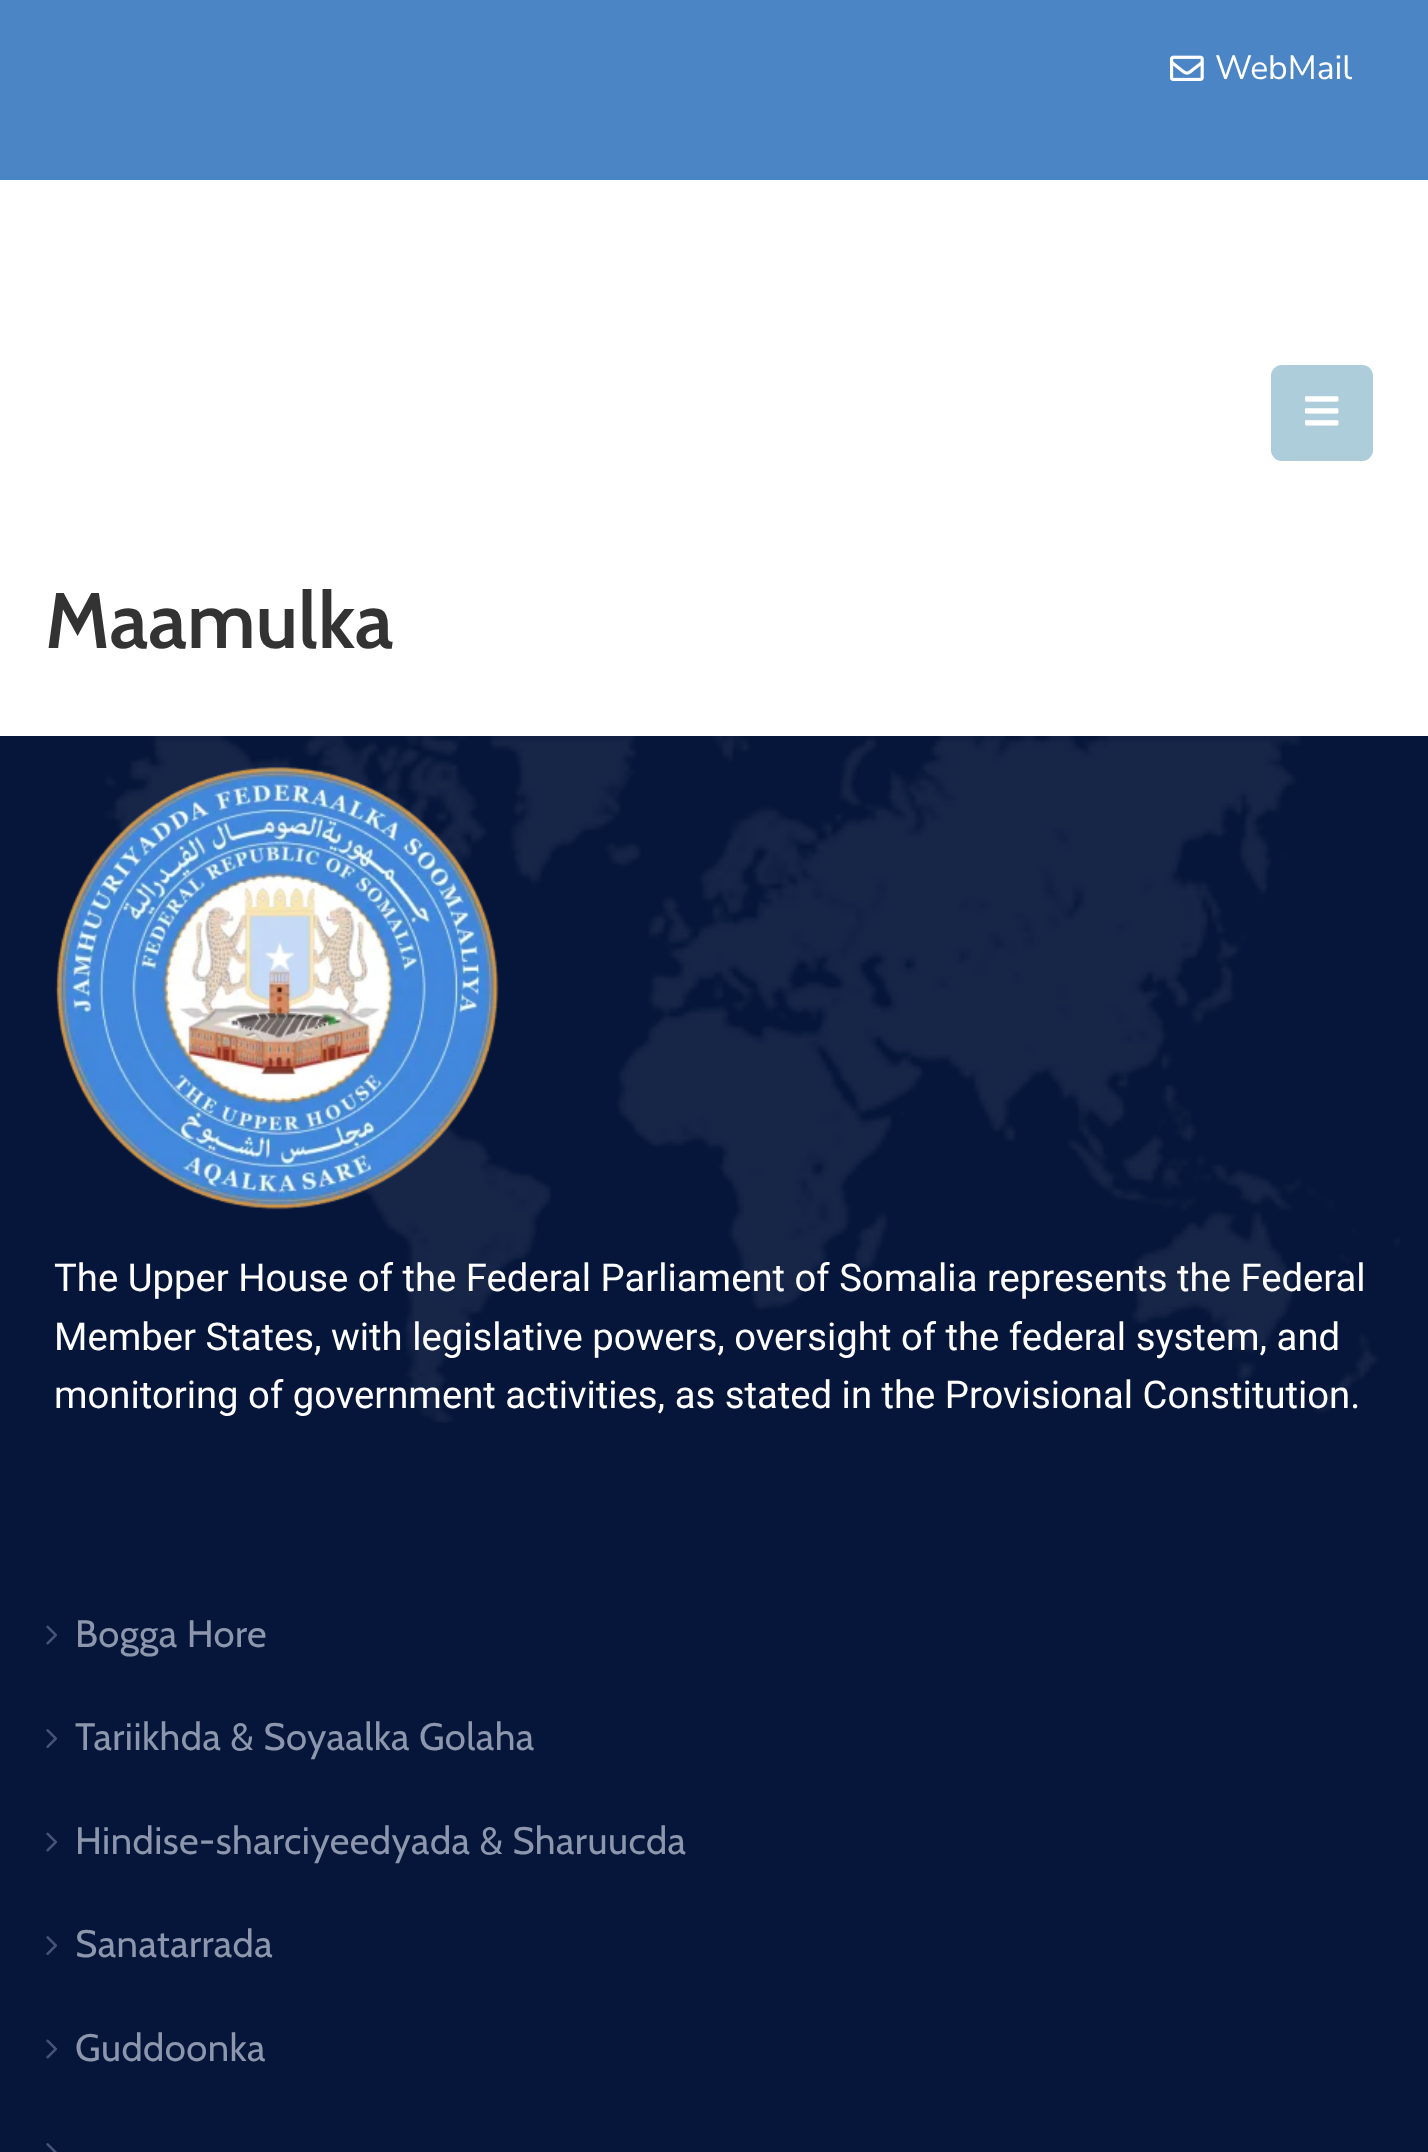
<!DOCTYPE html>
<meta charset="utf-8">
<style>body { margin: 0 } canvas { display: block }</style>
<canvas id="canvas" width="1428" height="2152"></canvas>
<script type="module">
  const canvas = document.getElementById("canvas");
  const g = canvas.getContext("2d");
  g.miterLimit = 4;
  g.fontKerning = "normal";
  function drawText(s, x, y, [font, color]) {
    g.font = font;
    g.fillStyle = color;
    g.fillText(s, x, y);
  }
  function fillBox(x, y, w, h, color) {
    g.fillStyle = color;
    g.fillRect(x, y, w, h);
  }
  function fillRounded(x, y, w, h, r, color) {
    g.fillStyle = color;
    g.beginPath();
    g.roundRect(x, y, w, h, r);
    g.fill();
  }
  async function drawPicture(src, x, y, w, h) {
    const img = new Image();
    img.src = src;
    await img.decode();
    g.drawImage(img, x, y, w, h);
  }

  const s1 = ["33.75px Nunito Sans", "#FFFFFF"];
  const s2 = ["600 78.75px Cabin", "#333333"];
  const s3 = ["38.25px Roboto", "#FFFFFF"];
  const s4 = ["38.25px Cabin", "#8C96AC"];

  fillBox(0, 0, 1428, 2152, "#FFFFFF");
  fillBox(0, 0, 1428, 180, "#4B85C5");
  await drawPicture("pic1.png", 1170, 55, 34, 26);
  drawText("WebMail", 1215, 79, s1);
  fillRounded(1271, 365, 102, 96, 11, "#ADCDDA");
  await drawPicture("pic2.png", 1305, 396, 34, 30);
  drawText("Maamulka", 45, 648, s2);
  fillBox(0, 736, 1428, 1416, "#06163A");
  await drawPicture("pic3.png", 92, 736, 1308, 687);
  await drawPicture("pic4.png", 55, 767, 444, 443);
  drawText("The Upper House of the Federal Parliament of Somalia represents the Federal", 54, 1291, s3);
  drawText("Member States, with legislative powers, oversight of the federal system, and", 54, 1350, s3);
  drawText("monitoring of government activities, as stated in the Provisional Constitution.", 54, 1408, s3);
  await drawPicture("pic5.png", 46, 1625, 11, 20);
  g.letterSpacing = "0.45px";
  drawText("Bogga Hore", 75, 1647, s4);
  await drawPicture("pic6.png", 46, 1729, 11, 19);
  drawText("Tariikhda & Soyaalka Golaha", 75, 1750, s4);
  await drawPicture("pic5.png", 46, 1832, 11, 20);
  drawText("Hindise-sharciyeedyada & Sharuucda", 75, 1854, s4);
  await drawPicture("pic6.png", 46, 1936, 11, 19);
  drawText("Sanatarrada", 75, 1957, s4);
  await drawPicture("pic5.png", 46, 2039, 11, 20);
  drawText("Guddoonka", 75, 2061, s4);
  await drawPicture("pic7.png", 46, 2143, 11, 9);
</script>
